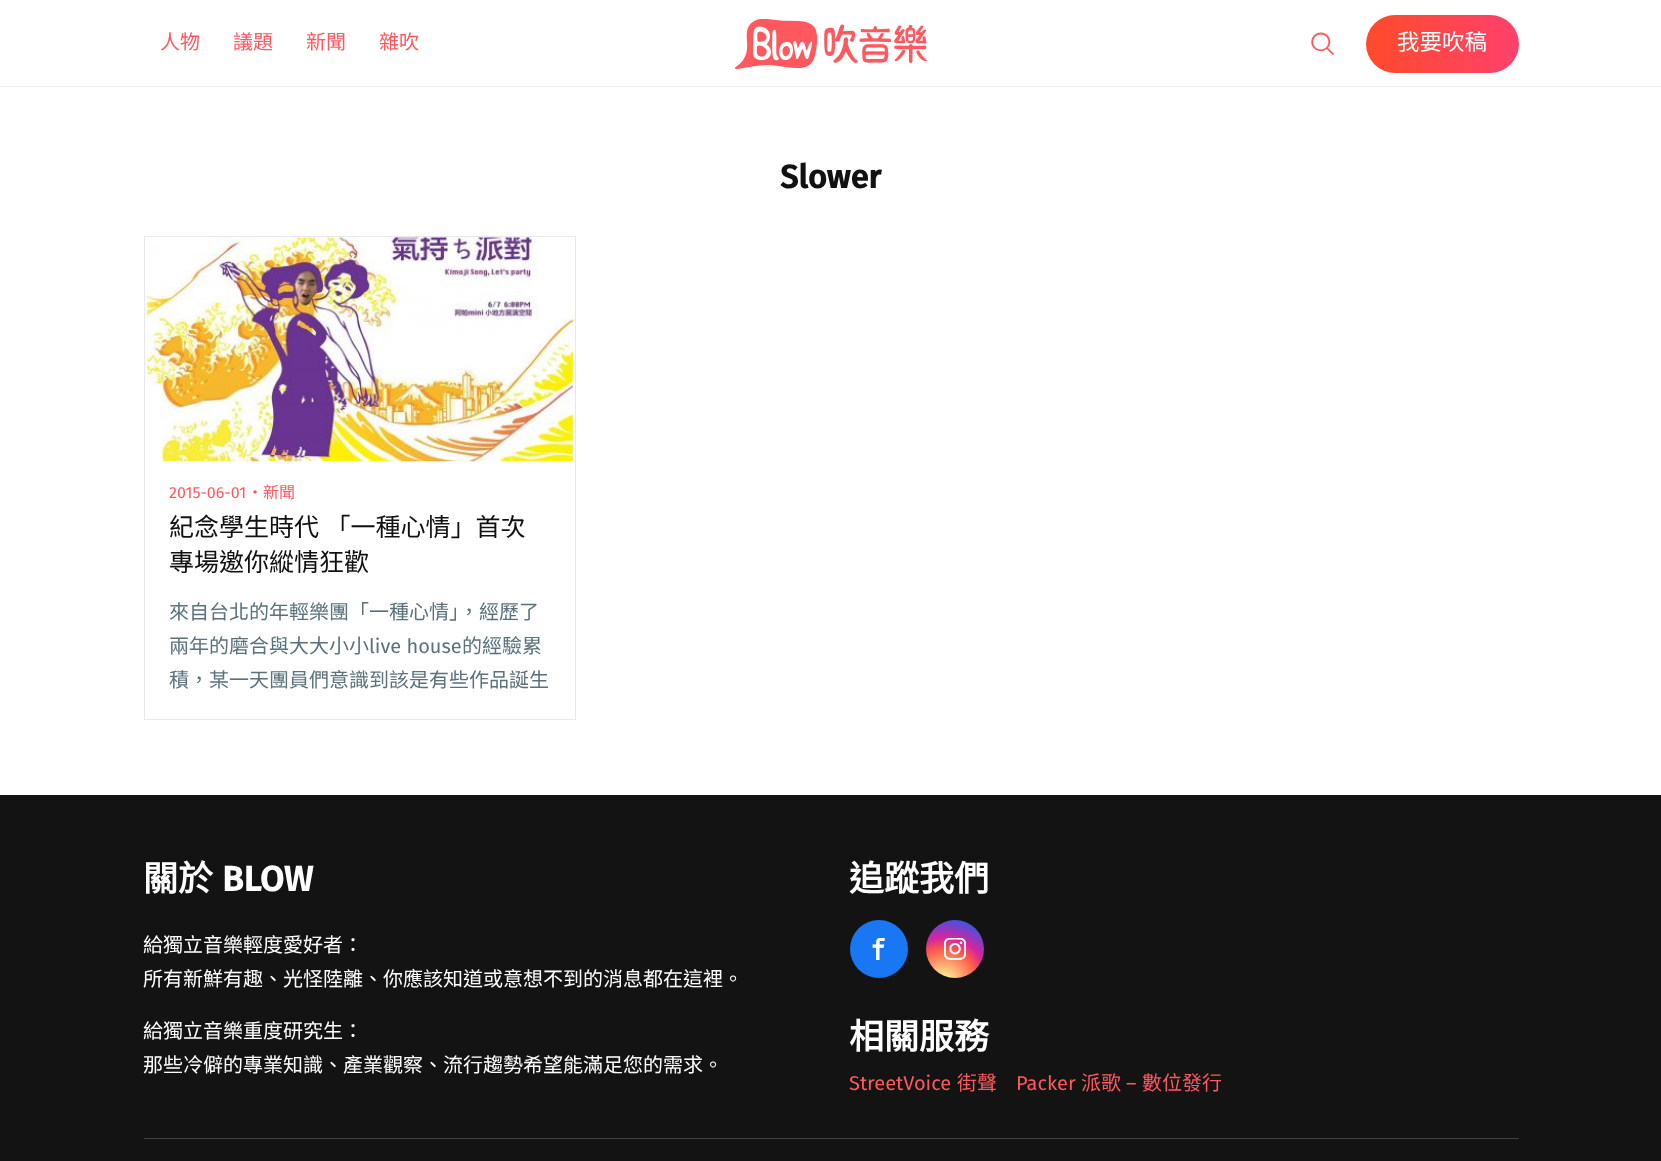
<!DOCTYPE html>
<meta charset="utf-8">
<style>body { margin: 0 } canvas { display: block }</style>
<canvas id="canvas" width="1661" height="1161"></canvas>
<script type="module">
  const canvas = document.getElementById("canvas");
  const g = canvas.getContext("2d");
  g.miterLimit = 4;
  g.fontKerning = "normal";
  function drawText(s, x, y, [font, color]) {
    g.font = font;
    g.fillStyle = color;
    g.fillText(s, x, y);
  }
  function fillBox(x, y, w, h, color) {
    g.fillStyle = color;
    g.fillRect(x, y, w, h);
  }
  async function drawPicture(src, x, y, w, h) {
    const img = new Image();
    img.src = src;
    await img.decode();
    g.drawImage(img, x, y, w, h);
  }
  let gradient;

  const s1 = ["20px Noto Sans CJK TC", "#FF595F"];
  const s2 = ["22.5px Noto Sans CJK TC", "#FFFFFF"];
  const s3 = ["bold 32.5px Fira Sans", "#111111"];
  const s4 = ["16px Fira Sans", "#FF595F"];
  const s5 = ["16px Noto Sans CJK TC", "#FF595F"];
  const s6 = ["25px Noto Sans CJK TC", "#111111"];
  const s7 = ["20px Noto Sans CJK TC", "#5C717B"];
  const s8 = ["20px Fira Sans", "#5C717B"];
  const s9 = ["bold 35px Noto Sans CJK TC", "#FFFFFF"];
  const s10 = ["bold 35px Fira Sans", "#FFFFFF"];
  const s11 = ["20px Noto Sans CJK TC", "#FFFFFF"];
  const s12 = ["20px Fira Sans", "#FF595F"];

  fillBox(0, 0, 1661, 1161, "#FFFFFF");
  fillBox(0, 86, 1661, 1, "#F2F2F2");
  drawText("人物", 160, 49, s1);
  drawText("議題", 233, 49, s1);
  drawText("新聞", 306, 49, s1);
  drawText("雜吹", 379, 49, s1);
  await drawPicture("pic1.png", 735, 19, 192, 50);
  await drawPicture("pic2.png", 1311, 32, 23, 23);
  gradient = g.createLinearGradient(1366, 44, 1519, 44);
  gradient.addColorStop(0, "#FF4B2B");
  gradient.addColorStop(1, "#FF416C");
  g.fillStyle = gradient;
  g.beginPath();
  g.roundRect(1366, 15, 153, 58, 29);
  g.fill();
  drawText("我要吹稿", 1397, 50, s2);
  drawText("Slower", 780, 188, s3);
  g.strokeStyle = "#E8E7EA";
  g.strokeRect(144.5, 236.5, 431, 483);
  await drawPicture("pic3.png", 145, 237, 430, 225);
  drawText("2015-06-01", 169, 498, s4);
  drawText("・新聞", 247, 498, s5);
  g.wordSpacing = "1px";
  drawText("紀念學生時代 「一種心情」首次", 169, 536, s6);
  g.wordSpacing = "0px";
  drawText("專場邀你縱情狂歡", 169, 571, s6);
  drawText("來自台北的年輕樂團「一種心情」，經歷了", 169, 619, s7);
  drawText("兩年的磨合與大大小小", 169, 653, s7);
  drawText("live house", 369, 653, s8);
  drawText("的經驗累", 462, 653, s7);
  drawText("積，某一天團員們意識到該是有些作品誕生", 169, 687, s7);
  fillBox(0, 795, 1661, 366, "#131313");
  drawText("關於", 143, 891, s9);
  drawText("BLOW", 222, 891, s10);
  drawText("給獨立音樂輕度愛好者：", 143, 952, s11);
  drawText("所有新鮮有趣、光怪陸離、你應該知道或意想不到的消息都在這裡。", 143, 986, s11);
  drawText("給獨立音樂重度研究生：", 143, 1038, s11);
  drawText("那些冷僻的專業知識、產業觀察、流行趨勢希望能滿足您的需求。", 143, 1072, s11);
  drawText("追蹤我們", 849, 891, s9);
  g.fillStyle = "#1977F3";
  g.beginPath();
  g.arc(879, 949, 29, 0, Math.PI * 2);
  g.fill();
  await drawPicture("pic4.png", 872, 938, 13, 22);
  gradient = g.createRadialGradient(944, 982, 0, 944, 982, 74);
  gradient.addColorStop(0, "#FDF497");
  gradient.addColorStop(0.05, "#FDF497");
  gradient.addColorStop(0.45, "#FD5949");
  gradient.addColorStop(0.6, "#D6249F");
  gradient.addColorStop(0.9, "#285AEB");
  g.fillStyle = gradient;
  g.beginPath();
  g.arc(955, 949, 29, 0, Math.PI * 2);
  g.fill();
  await drawPicture("pic5.png", 944, 938, 22, 22);
  drawText("相關服務", 849, 1049, s9);
  drawText("StreetVoice", 849, 1090, s12);
  drawText("街聲", 957, 1090, s1);
  drawText("Packer", 1016, 1090, s12);
  drawText("派歌", 1081, 1090, s1);
  drawText("–", 1126, 1090, s12);
  drawText("數位發行", 1142, 1090, s1);
  fillBox(144, 1138, 1375, 1, "#424242");
</script>
